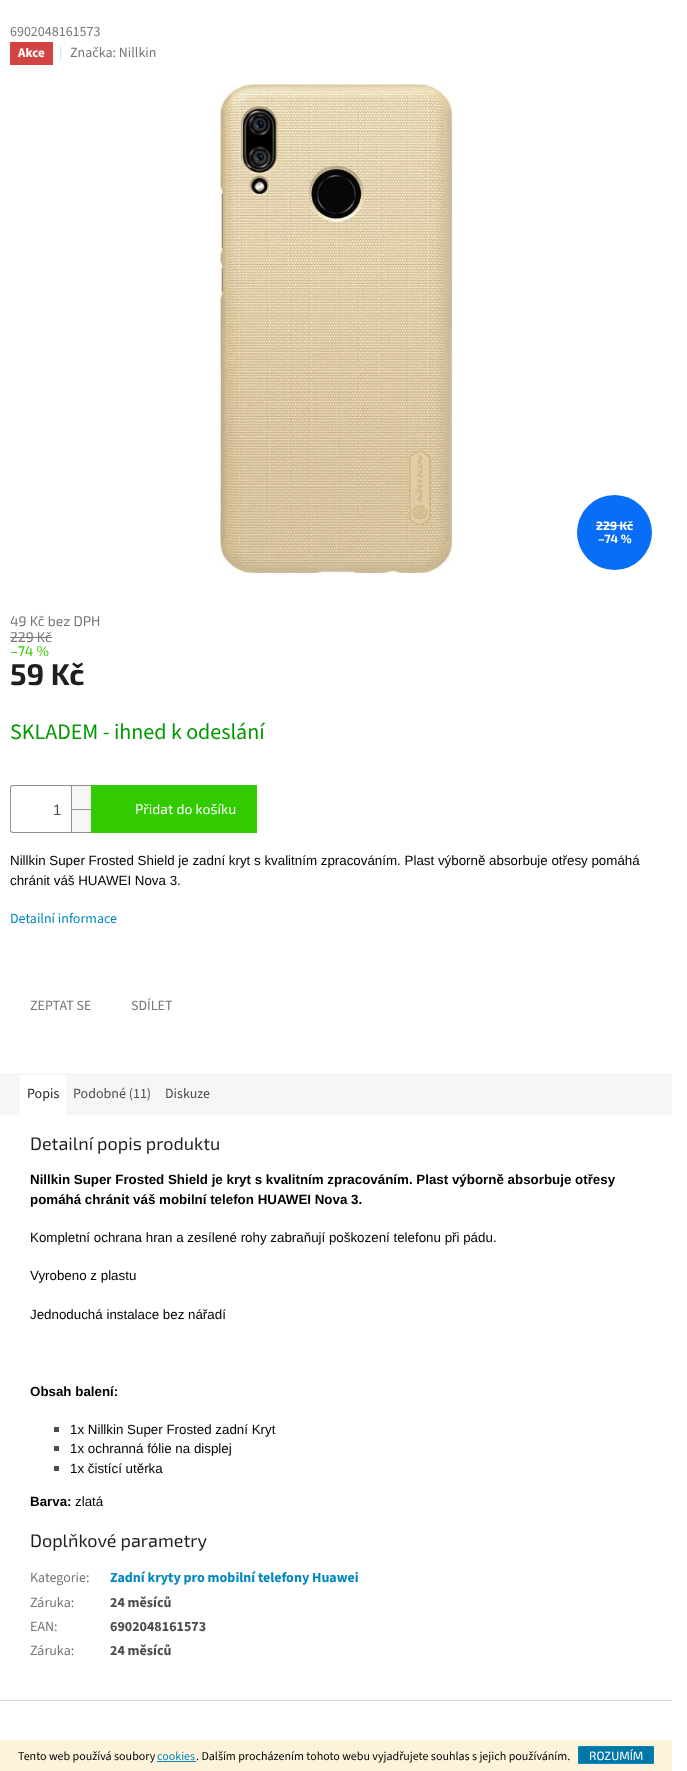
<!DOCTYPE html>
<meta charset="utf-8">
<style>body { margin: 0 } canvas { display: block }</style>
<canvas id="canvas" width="687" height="1771"></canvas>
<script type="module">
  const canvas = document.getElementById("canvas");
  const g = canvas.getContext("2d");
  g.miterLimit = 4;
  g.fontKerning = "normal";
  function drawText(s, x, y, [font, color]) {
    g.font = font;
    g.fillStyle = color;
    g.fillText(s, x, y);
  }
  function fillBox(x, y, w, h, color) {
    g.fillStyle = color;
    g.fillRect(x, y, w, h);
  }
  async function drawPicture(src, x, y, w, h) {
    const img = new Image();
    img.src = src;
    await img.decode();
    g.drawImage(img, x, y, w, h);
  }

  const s1 = ["14px 'Source Sans 3'", "#767676"];
  const s2 = ["bold 13px 'Source Sans 3'", "#FFFFFF"];
  const s3 = ["14px 'Source Sans 3'", "#DADADA"];
  const s4 = ["bold 12px 'Exo 2'", "#FFFFFF"];
  const s5 = ["14px 'Exo 2'", "#767676"];
  const s6 = ["14px 'Exo 2'", "#32CB00"];
  const s7 = ["bold 30px 'Exo 2'", "#1F1F1F"];
  const s8 = ["22px 'Source Sans 3'", "#009901"];
  const s9 = ["15px Liberation Sans", "#4D4D4D"];
  const s10 = ["14px 'Exo 2'", "#FFFFFF"];
  const s11 = ["13.35px Liberation Sans", "#000000"];
  const s12 = ["14px 'Source Sans 3'", "#0088BF"];
  const s13 = ["14px 'Source Sans 3'", "#1F1F1F"];
  const s14 = ["14px 'Source Sans 3'", "#4D4D4D"];
  const s15 = ["18px 'Exo 2'", "#1F1F1F"];
  const s16 = ["bold 13.35px Liberation Sans", "#000000"];
  const s17 = ["bold 14px 'Source Sans 3'", "#0088BF"];
  const s18 = ["bold 14px 'Source Sans 3'", "#4D4D4D"];
  const s19 = ["12px 'Source Sans 3'", "#000000"];
  const s20 = ["12px 'Source Sans 3'", "#0088BF"];
  const s21 = ["12px 'Exo 2'", "#FFFFFF"];

  fillBox(0, 0, 687, 1771, "#FFFFFF");
  drawText("6902048161573", 10, 36, s1);
  fillBox(10, 42, 43, 23, "#D34343");
  drawText("Akce", 18, 57, s2);
  drawText("|", 59, 57, s3);
  drawText("Značka: Nillkin", 70, 57, s1);
  await drawPicture("pic1.png", 219, 84, 234, 489);
  g.fillStyle = "#086DF7";
  g.beginPath();
  g.arc(614.5, 532.5, 37.5, 0, Math.PI * 2);
  g.fill();
  drawText("229 Kč", 596, 530, s4);
  fillBox(596, 525, 37, 1, "#FFFFFF");
  drawText("–74 %", 598, 543, s4);
  drawText("49 Kč bez DPH", 10, 626, s5);
  drawText("229 Kč", 10, 642, s5);
  fillBox(10, 637, 42, 1, "#767676");
  drawText("–74 %", 10, 656, s6);
  drawText("59 Kč", 10, 685, s7);
  drawText("SKLADEM - ihned k odeslání", 10, 739, s8);
  g.fillStyle = "#919191";
  g.beginPath();
  g.moveTo(13, 785);
  g.lineTo(91, 785);
  g.lineTo(91, 833);
  g.lineTo(13, 833);
  g.bezierCurveTo(11, 833, 10, 832, 10, 830);
  g.lineTo(10, 788);
  g.bezierCurveTo(10, 786, 11, 785, 13, 785);
  g.closePath();
  g.moveTo(13, 786);
  g.lineTo(91, 786);
  g.lineTo(91, 832);
  g.lineTo(13, 832);
  g.bezierCurveTo(12, 832, 11, 831, 11, 830);
  g.lineTo(11, 788);
  g.bezierCurveTo(11, 787, 12, 786, 13, 786);
  g.closePath();
  g.fill("evenodd");
  drawText("1", 53, 815, s9);
  fillBox(72, 786, 19, 23, "#F6F6F6");
  fillBox(71, 786, 1, 23, "#919191");
  fillBox(72, 810, 19, 22, "#F6F6F6");
  fillBox(71, 809, 20, 1, "#919191");
  fillBox(71, 809, 1, 23, "#919191");
  fillBox(91, 785, 166, 48, "#32CB00");
  drawText("Přidat do košíku", 135, 814, s10);
  drawText("Nillkin Super Frosted Shield je zadní kryt s kvalitním zpracováním. Plast výborně absorbuje otřesy pomáhá", 10, 865, s11);
  drawText("chránit váš HUAWEI Nova 3.", 10, 885, s11);
  drawText("Detailní informace", 10, 923, s12);
  drawText("ZEPTAT SE", 30, 1010, s1);
  drawText("SDÍLET", 131, 1010, s1);
  fillBox(0, 1073, 672, 42, "#F6F6F6");
  fillBox(20, 1075, 46, 40, "#FFFFFF");
  drawText("Popis", 27, 1098, s13);
  drawText("Podobné (11)", 73, 1098, s14);
  drawText("Diskuze", 165, 1098, s14);
  drawText("Detailní popis produktu", 30, 1150, s15);
  drawText("Nillkin Super Frosted Shield je kryt s kvalitním zpracováním. Plast výborně absorbuje otřesy", 30, 1184, s16);
  drawText("pomáhá chránit váš mobilní telefon HUAWEI Nova 3.", 30, 1204, s16);
  drawText("Kompletní ochrana hran a zesílené rohy zabraňují poškození telefonu při pádu.", 30, 1242, s11);
  drawText("Vyrobeno z plastu", 30, 1280, s11);
  drawText("Jednoduchá instalace bez nářadí", 30, 1319, s11);
  drawText("Obsah balení:", 30, 1396, s16);
  fillBox(54, 1427, 5, 5, "#4D4D4D");
  drawText("1x Nillkin Super Frosted zadní Kryt", 70, 1434, s11);
  fillBox(54, 1446, 5, 5, "#4D4D4D");
  drawText("1x ochranná fólie na displej", 70, 1453, s11);
  fillBox(54, 1466, 5, 5, "#4D4D4D");
  drawText("1x čistící utěrka", 70, 1473, s11);
  drawText("Barva:", 30, 1506, s16);
  drawText("zlatá", 75, 1506, s11);
  drawText("Doplňkové parametry", 30, 1547, s15);
  drawText("Kategorie:", 30, 1582, s1);
  drawText("Zadní kryty pro mobilní telefony Huawei", 110, 1582, s17);
  drawText("Záruka:", 30, 1607, s1);
  drawText("24 měsíců", 110, 1607, s18);
  drawText("EAN:", 30, 1631, s1);
  drawText("6902048161573", 110, 1631, s18);
  drawText("Záruka:", 30, 1655, s1);
  drawText("24 měsíců", 110, 1655, s18);
  fillBox(0, 1700, 672, 1, "#DADADA");
  fillBox(0, 1740, 672, 31, "#FDF3DA");
  drawText("Tento web používá soubory", 18, 1760, s19);
  drawText("cookies", 157, 1760, s20);
  drawText(". Dalším procházením tohoto webu vyjadřujete souhlas s jejich používáním.", 196, 1760, s19);
  fillBox(157, 1761, 39, 1, "#0088BF");
  g.fillStyle = "#0077A6";
  g.beginPath();
  g.rect(578.5, 1746.5, 75, 17);
  g.fill();
  g.strokeStyle = "#0088BF";
  g.stroke();
  drawText("ROZUMÍM", 589, 1760, s21);
</script>
